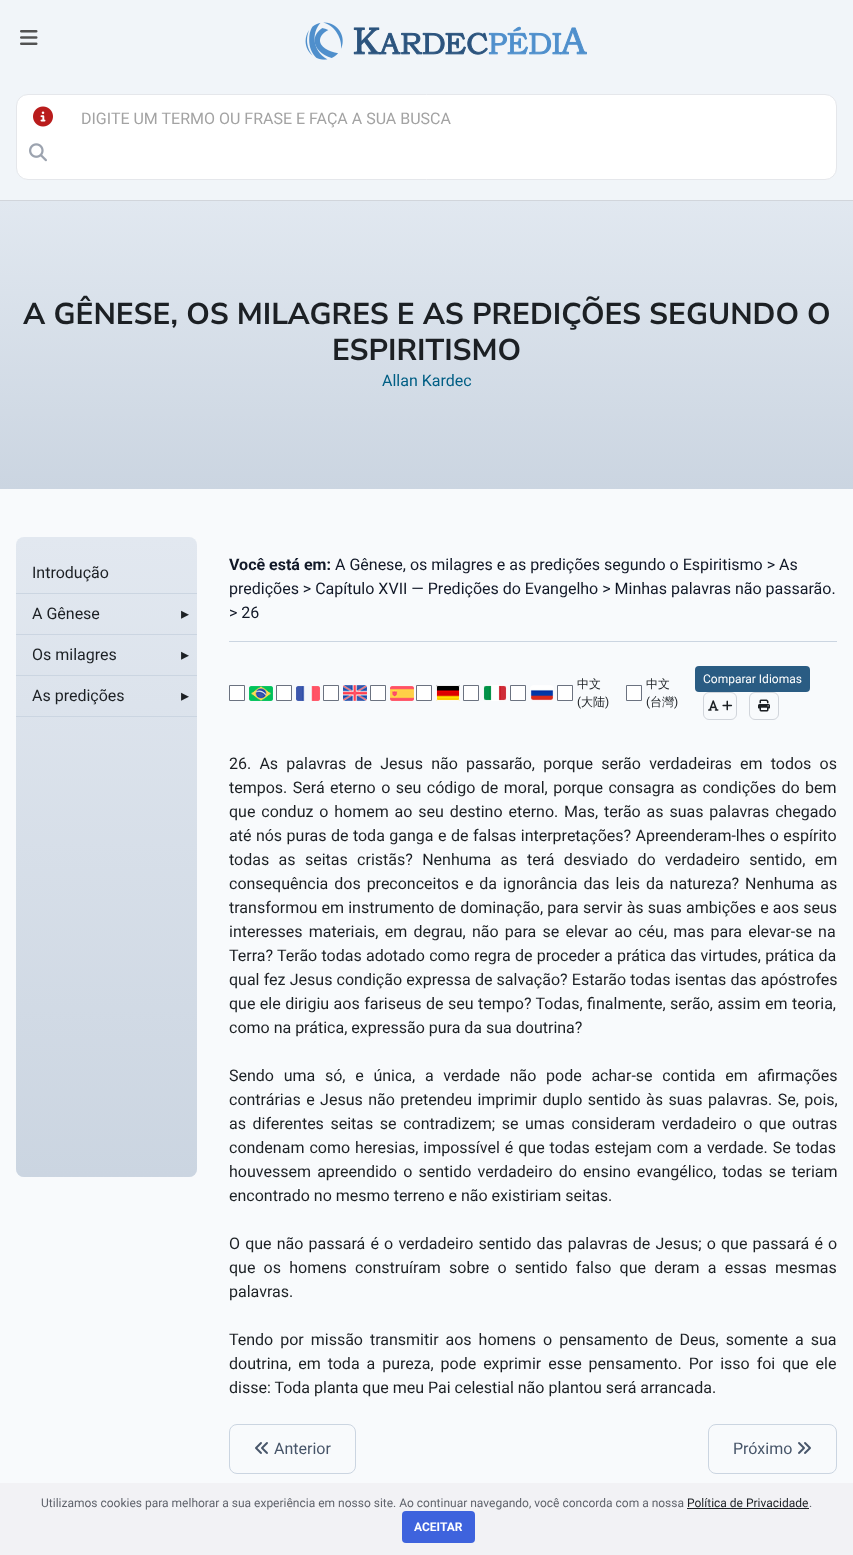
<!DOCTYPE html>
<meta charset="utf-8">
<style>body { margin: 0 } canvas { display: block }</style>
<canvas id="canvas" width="853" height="1555"></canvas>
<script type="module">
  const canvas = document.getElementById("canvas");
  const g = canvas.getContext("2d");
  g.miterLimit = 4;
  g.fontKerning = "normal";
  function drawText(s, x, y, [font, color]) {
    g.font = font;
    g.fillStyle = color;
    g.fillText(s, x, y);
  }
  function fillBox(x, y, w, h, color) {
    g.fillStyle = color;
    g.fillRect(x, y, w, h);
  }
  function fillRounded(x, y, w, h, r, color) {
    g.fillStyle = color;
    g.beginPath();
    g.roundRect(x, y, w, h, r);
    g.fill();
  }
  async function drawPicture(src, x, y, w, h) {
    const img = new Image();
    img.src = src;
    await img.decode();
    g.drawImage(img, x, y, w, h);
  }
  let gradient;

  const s1 = ["16px Roboto", "#A3A3A3"];
  const s2 = ["bold 30px Nunito Sans", "#1C2024"];
  const s3 = ["16px Roboto", "#005E84"];
  const s4 = ["16px Roboto", "#1C2024"];
  const s5 = ["16px DejaVu Sans", "#1C2024"];
  const s6 = ["bold 16px Roboto", "#111827"];
  const s7 = ["16px Roboto", "#111827"];
  const s8 = ["500 12px WenQuanYi Zen Hei", "#1C2024"];
  const s9 = ["12px Roboto", "#1C2024"];
  const s10 = ["12px Roboto", "#FFFFFF"];
  const s11 = ["16px Roboto", "#475569"];
  const s12 = ["12px Roboto", "#60646C"];
  const s13 = ["bold 12px Roboto", "#FFFFFF"];

  fillBox(0, 0, 853, 1555, "#F1F5F9");
  fillBox(0, 200, 853, 1, "#D1D5DB");
  await drawPicture("pic1.png", 20, 30, 18, 15);
  await drawPicture("pic2.png", 305, 22, 282, 38);
  g.fillStyle = "#FFFFFF";
  g.beginPath();
  g.roundRect(16.5, 94.5, 820, 85, 11.5);
  g.fill();
  g.strokeStyle = "#E5E7EB";
  g.stroke();
  await drawPicture("pic3.png", 33, 106, 20, 21);
  drawText("DIGITE UM TERMO OU FRASE E FAÇA A SUA BUSCA", 81, 124, s1);
  await drawPicture("pic4.png", 29, 143, 18, 19);
  gradient = g.createLinearGradient(427, 489, 427, 201);
  gradient.addColorStop(0, "#CBD5E1");
  gradient.addColorStop(1, "#E1E8F0");
  g.fillStyle = gradient;
  g.fillRect(0, 201, 853, 288);
  drawText("A GÊNESE, OS MILAGRES E AS PREDIÇÕES SEGUNDO O", 23, 324, s2);
  drawText("ESPIRITISMO", 332, 360, s2);
  drawText("Allan Kardec", 382, 386, s3);
  fillBox(0, 489, 853, 994, "#F8FAFC");
  fillRounded(16, 537, 181, 640, 8, "#E2E8F0");
  gradient = g.createLinearGradient(107, 1177, 107, 537);
  gradient.addColorStop(0, "#CBD5E1");
  gradient.addColorStop(1, "rgba(203, 213, 225, 0)");
  g.fillStyle = gradient;
  g.beginPath();
  g.roundRect(16, 537, 181, 640, 8);
  g.fill();
  fillBox(16, 593, 181, 1, "#CBD5E1");
  drawText("Introdução", 32, 578, s4);
  fillBox(16, 634, 181, 1, "#CBD5E1");
  drawText("A Gênese", 32, 619, s4);
  drawText("▸", 181, 619, s5);
  fillBox(16, 675, 181, 1, "#CBD5E1");
  drawText("Os milagres", 32, 660, s4);
  drawText("▸", 181, 660, s5);
  fillBox(16, 716, 181, 1, "#CBD5E1");
  drawText("As predições", 32, 701, s4);
  drawText("▸", 181, 701, s5);
  fillBox(229, 641, 608, 1, "#CBD5E1");
  drawText("Você está em:", 229, 570, s6);
  drawText("A Gênese, os milagres e as predições segundo o Espiritismo > As", 335, 570, s7);
  drawText("predições > Capítulo XVII — Predições do Evangelho > Minhas palavras não passarão.", 229, 594, s7);
  drawText("> 26", 229, 618, s7);
  g.fillStyle = "#FFFFFF";
  g.beginPath();
  g.rect(229.5, 685.5, 15, 15);
  g.fill();
  g.strokeStyle = "#6B7280";
  g.stroke();
  await drawPicture("pic5.png", 249, 686, 24, 15);
  g.beginPath();
  g.rect(276.5, 685.5, 15, 15);
  g.fill();
  g.stroke();
  await drawPicture("pic6.png", 296, 686, 24, 15);
  g.beginPath();
  g.rect(323.5, 685.5, 15, 15);
  g.fill();
  g.stroke();
  await drawPicture("pic7.png", 343, 685, 24, 16);
  g.beginPath();
  g.rect(370.5, 685.5, 15, 15);
  g.fill();
  g.stroke();
  await drawPicture("pic8.png", 390, 686, 24, 15);
  g.beginPath();
  g.rect(416.5, 685.5, 15, 15);
  g.fill();
  g.stroke();
  await drawPicture("pic9.png", 436, 685, 24, 16);
  g.beginPath();
  g.rect(463.5, 685.5, 15, 15);
  g.fill();
  g.stroke();
  await drawPicture("pic10.png", 483, 685, 24, 16);
  g.beginPath();
  g.rect(510.5, 685.5, 15, 15);
  g.fill();
  g.stroke();
  await drawPicture("pic11.png", 530, 685, 24, 16);
  g.beginPath();
  g.rect(557.5, 685.5, 15, 15);
  g.fill();
  g.stroke();
  drawText("中文", 577, 688, s8);
  drawText("(", 577, 706, s9);
  drawText("大陆", 581, 706, s8);
  drawText(")", 605, 706, s9);
  g.fillStyle = "#FFFFFF";
  g.beginPath();
  g.rect(626.5, 685.5, 15, 15);
  g.fill();
  g.stroke();
  drawText("中文", 646, 688, s8);
  drawText("(", 646, 706, s9);
  drawText("台灣", 650, 706, s8);
  drawText(")", 674, 706, s9);
  fillRounded(695, 666, 115, 26, 4, "#2A5C83");
  drawText("Comparar Idiomas", 703, 683, s10);
  g.beginPath();
  g.roundRect(703.5, 692.5, 33, 27, 5.5);
  g.strokeStyle = "#D1D5DB";
  g.stroke();
  await drawPicture("pic12.png", 708, 700, 11, 11);
  await drawPicture("pic13.png", 722, 700, 11, 11);
  g.beginPath();
  g.roundRect(749.5, 692.5, 29, 27, 5.5);
  g.stroke();
  await drawPicture("pic14.png", 758, 699, 12, 13);
  g.wordSpacing = "4.25px";
  drawText("26. As palavras de Jesus não passarão, porque serão verdadeiras em todos os", 229, 769, s4);
  g.wordSpacing = "1.5px";
  drawText("tempos. Será eterno o seu código de moral, porque consagra as condições do bem", 229, 793, s4);
  g.wordSpacing = "1.9px";
  drawText("que conduz o homem ao seu destino eterno. Mas, terão as suas palavras chegado", 229, 817, s4);
  g.wordSpacing = "0.5px";
  drawText("até nós puras de toda ganga e de falsas interpretações? Apreenderam-lhes o espírito", 229, 841, s4);
  g.wordSpacing = "5.4px";
  drawText("todas as seitas cristãs? Nenhuma as terá desviado do verdadeiro sentido, em", 229, 865, s4);
  g.wordSpacing = "2px";
  drawText("consequência dos preconceitos e da ignorância das leis da natureza? Nenhuma as", 229, 889, s4);
  g.wordSpacing = "0.25px";
  drawText("transformou em instrumento de dominação, para servir às suas ambições e aos seus", 229, 913, s4);
  g.wordSpacing = "2.25px";
  drawText("interesses materiais, em degrau, não para se elevar ao céu, mas para elevar-se na", 229, 937, s4);
  g.wordSpacing = "0.3px";
  drawText("Terra? Terão todas adotado como regra de proceder a prática das virtudes, prática da", 229, 961, s4);
  g.wordSpacing = "0.25px";
  drawText("qual fez Jesus condição expressa de salvação? Estarão todas isentas das apóstrofes", 229, 985, s4);
  g.wordSpacing = "0.5px";
  drawText("que ele dirigiu aos fariseus de seu tempo? Todas, finalmente, serão, assim em teoria,", 229, 1009, s4);
  g.wordSpacing = "0px";
  drawText("como na prática, expressão pura da sua doutrina?", 229, 1033, s4);
  g.wordSpacing = "5.75px";
  drawText("Sendo uma só, e única, a verdade não pode achar-se contida em afirmações", 229, 1081, s4);
  g.wordSpacing = "1.5px";
  drawText("contrárias e Jesus não pretendeu imprimir duplo sentido às suas palavras. Se, pois,", 229, 1105, s4);
  g.wordSpacing = "2.6px";
  drawText("as diferentes seitas se contradizem; se umas consideram verdadeiro o que outras", 229, 1129, s4);
  g.wordSpacing = "1px";
  drawText("condenam como heresias, impossível é que todas estejam com a verdade. Se todas", 229, 1153, s4);
  g.wordSpacing = "2.25px";
  drawText("houvessem apreendido o sentido verdadeiro do ensino evangélico, todas se teriam", 229, 1177, s4);
  g.wordSpacing = "0px";
  drawText("encontrado no mesmo terreno e não existiriam seitas.", 229, 1201, s4);
  g.wordSpacing = "1.2px";
  drawText("O que não passará é o verdadeiro sentido das palavras de Jesus; o que passará é o", 229, 1249, s4);
  g.wordSpacing = "4.25px";
  drawText("que os homens construíram sobre o sentido falso que deram a essas mesmas", 229, 1273, s4);
  g.wordSpacing = "0px";
  drawText("palavras.", 229, 1297, s4);
  g.wordSpacing = "3px";
  drawText("Tendo por missão transmitir aos homens o pensamento de Deus, somente a sua", 229, 1345, s4);
  drawText("doutrina, em toda a pureza, pode exprimir esse pensamento. Por isso foi que ele", 229, 1369, s4);
  g.wordSpacing = "0px";
  drawText("disse: Toda planta que meu Pai celestial não plantou será arrancada.", 229, 1393, s4);
  g.beginPath();
  g.roundRect(229.5, 1424.5, 126, 49, 7.5);
  g.strokeStyle = "#CBD5E1";
  g.stroke();
  await drawPicture("pic15.png", 255, 1442, 13, 12);
  drawText("Anterior", 274, 1454, s11);
  g.beginPath();
  g.roundRect(708.5, 1424.5, 128, 49, 7.5);
  g.stroke();
  drawText("Próximo", 733, 1454, s11);
  await drawPicture("pic16.png", 798, 1442, 13, 12);
  fillBox(0, 1483, 853, 72, "#F2F2F5");
  drawText("Utilizamos cookies para melhorar a sua experiência em nosso site. Ao continuar navegando, você concorda com a nossa", 41, 1507, s12);
  drawText("Política de Privacidade", 687, 1507, s9);
  fillBox(687, 1508, 122, 1, "#1C2024");
  drawText(".", 809, 1507, s12);
  fillRounded(402, 1511, 73, 32, 4, "#3E63DD");
  drawText("ACEITAR", 414, 1531, s13);
</script>
